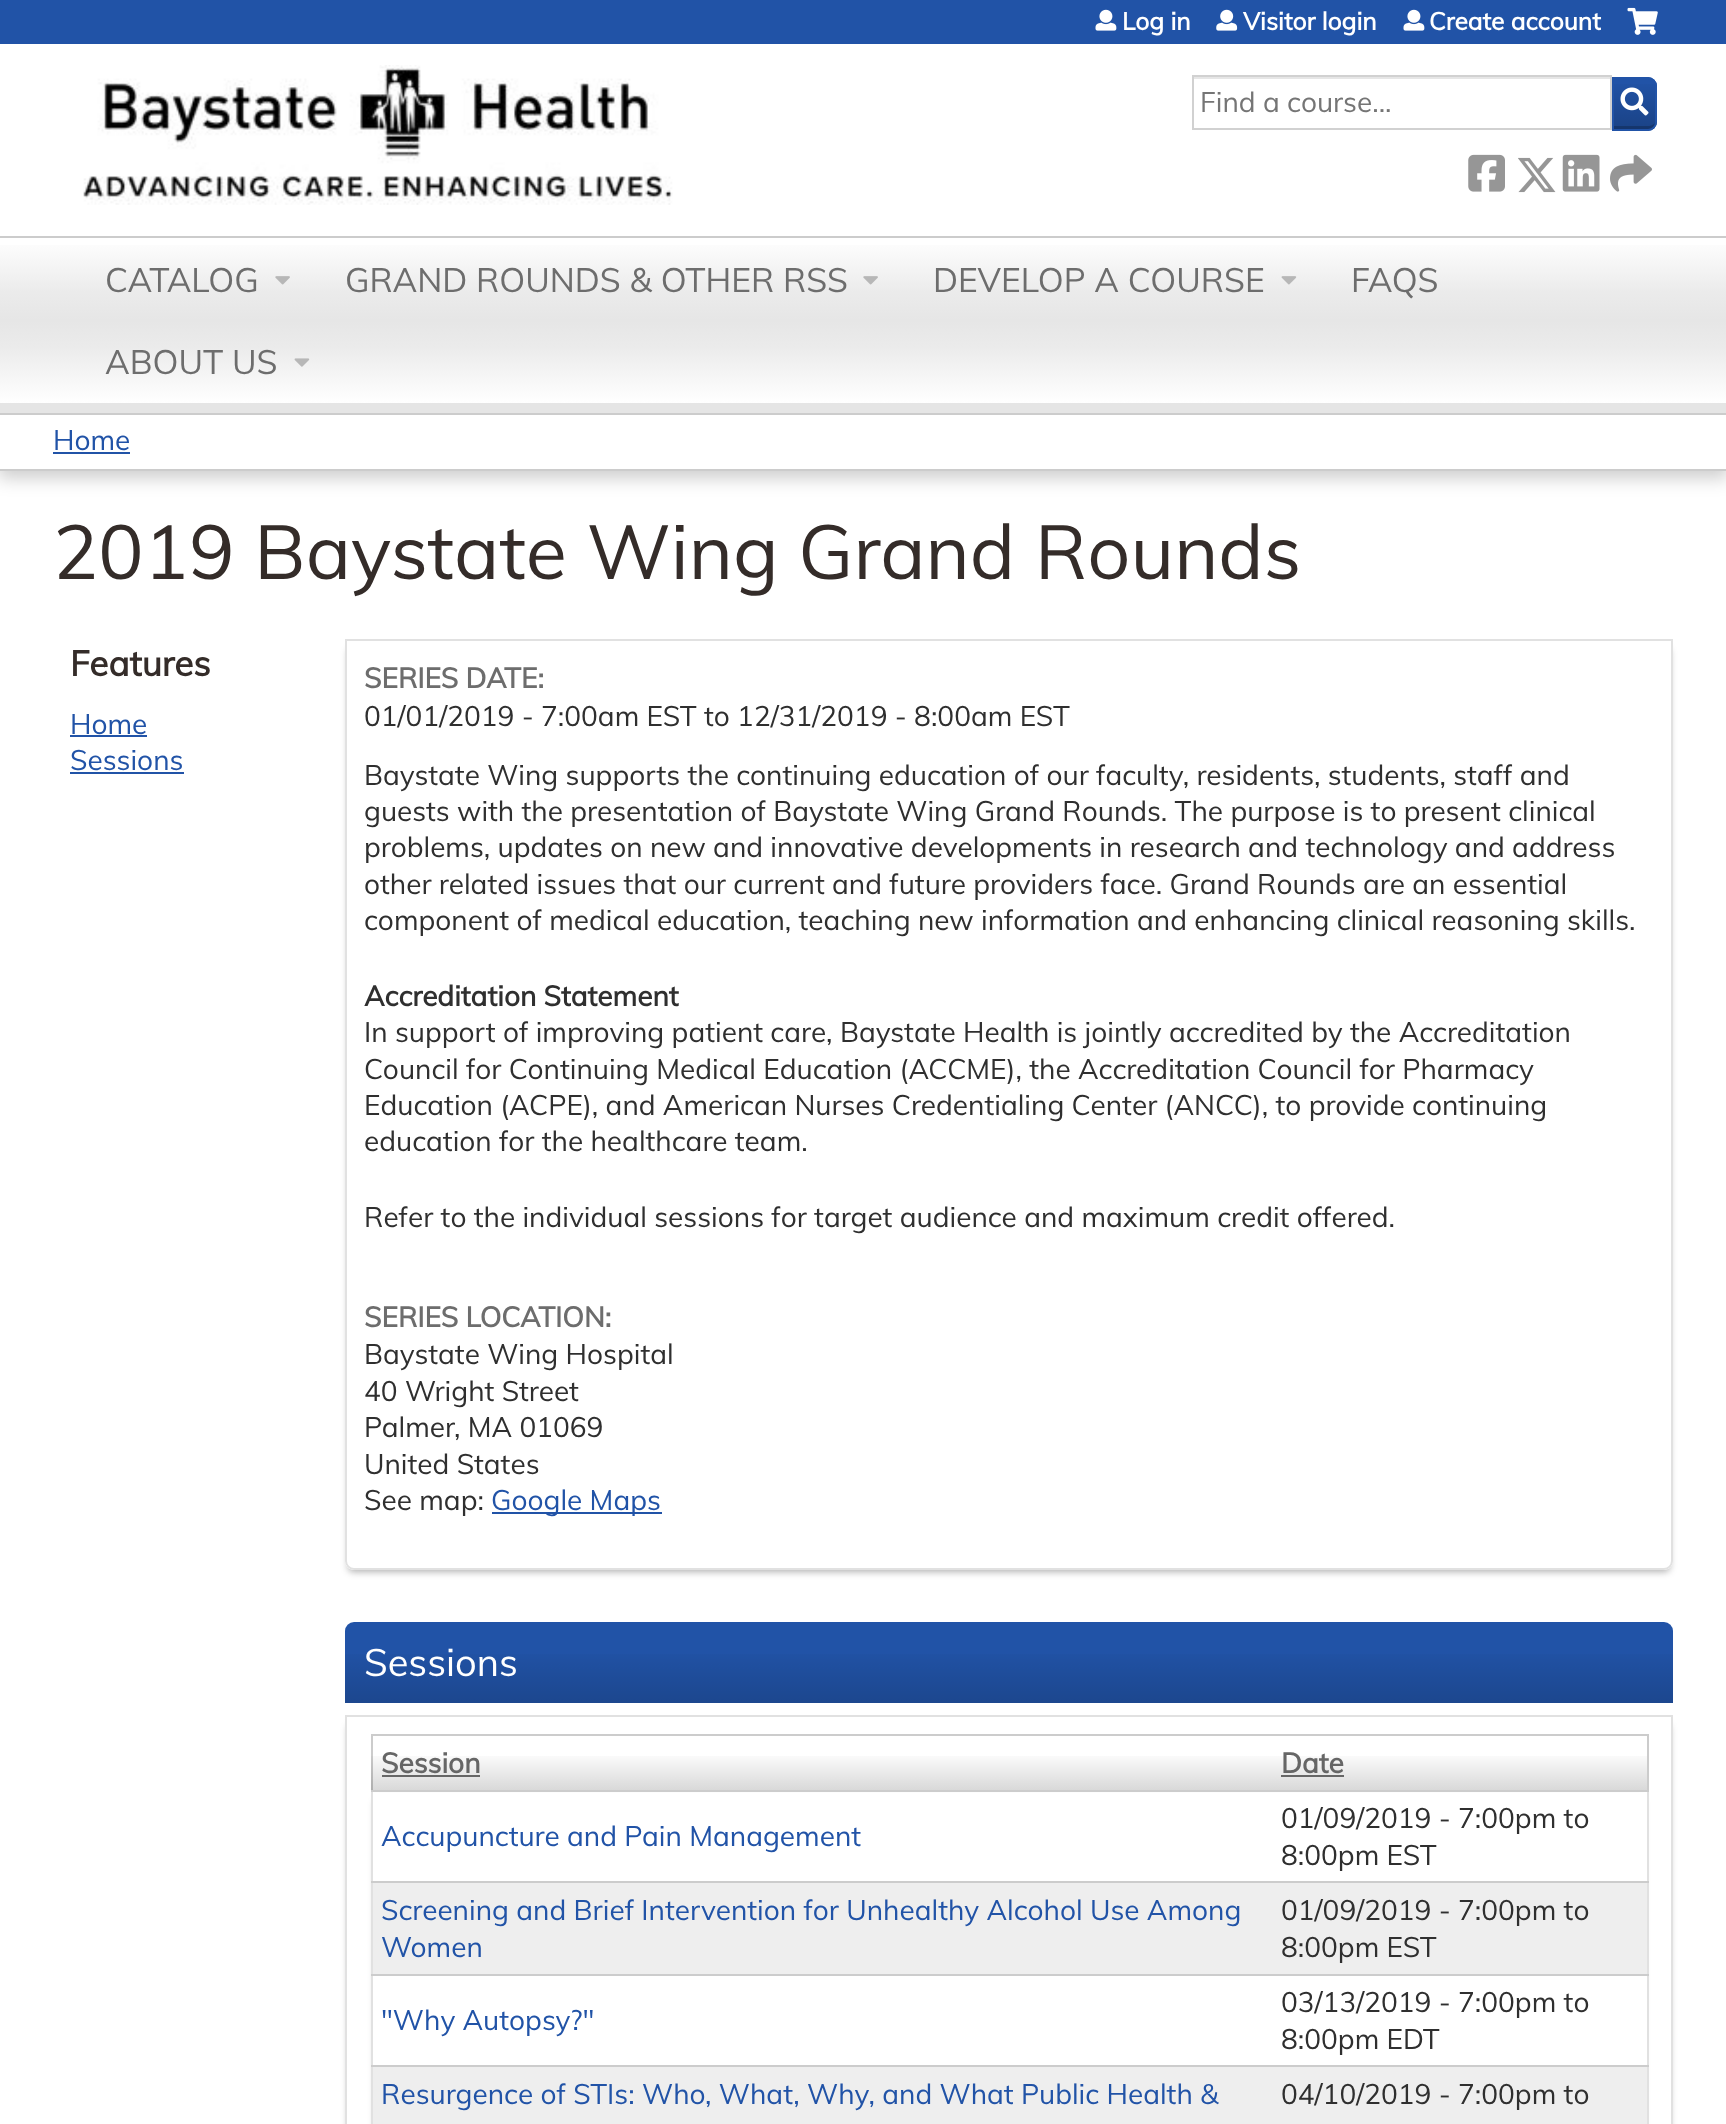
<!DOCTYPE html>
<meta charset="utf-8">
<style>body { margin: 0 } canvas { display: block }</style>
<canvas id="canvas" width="1726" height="2124"></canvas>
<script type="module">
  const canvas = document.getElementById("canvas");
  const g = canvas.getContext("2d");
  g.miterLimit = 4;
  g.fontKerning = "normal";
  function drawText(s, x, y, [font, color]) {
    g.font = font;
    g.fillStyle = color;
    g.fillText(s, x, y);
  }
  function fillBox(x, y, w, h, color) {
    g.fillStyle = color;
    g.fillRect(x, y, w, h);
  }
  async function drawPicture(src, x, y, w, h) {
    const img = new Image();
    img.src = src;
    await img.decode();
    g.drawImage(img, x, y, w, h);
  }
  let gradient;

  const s1 = ["bold 24.5px Muli", "#FFFFFF"];
  const s2 = ["28px Muli", "#757575"];
  const s3 = ["33.6px Muli", "#6D6D6D"];
  const s4 = ["28px Muli", "#2153A7"];
  const s5 = ["75.6px Muli", "#342C29"];
  const s6 = ["bold 35px Muli", "#342C29"];
  const s7 = ["bold 28px Muli", "#6D6D6D"];
  const s8 = ["28px Muli", "#2F2F2F"];
  const s9 = ["bold 28px Muli", "#2F2F2F"];
  const s10 = ["38px Muli", "#FFFFFF"];
  const s11 = ["bold 28px Muli", "#666666"];

  fillBox(0, 0, 1726, 2124, "#FFFFFF");
  fillBox(0, 0, 1726, 44, "#2153A7");
  await drawPicture("pic1.png", 83, 65, 590, 140);
  await drawPicture("pic2.png", 1095, 9, 22, 22);
  drawText("Log in", 1122, 30, s1);
  await drawPicture("pic3.png", 1216, 9, 22, 22);
  drawText("Visitor login", 1243, 30, s1);
  await drawPicture("pic2.png", 1403, 9, 22, 22);
  drawText("Create account", 1429, 30, s1);
  await drawPicture("pic4.png", 1627, 7, 31, 28);
  g.fillStyle = "#2153A7";
  g.beginPath();
  g.roundRect(1612, 77, 45, 54, [0, 9, 9, 0]);
  g.fill();
  g.save();
  g.beginPath();
  g.roundRect(1612, 77, 45, 54, [0, 9, 9, 0]);
  g.clip();
  gradient = g.createLinearGradient(1635, 130, 1635, 79);
  gradient.addColorStop(0, "rgba(0, 0, 0, 0.2)");
  gradient.addColorStop(1, "rgba(0, 0, 0, 0)");
  g.fillStyle = gradient;
  g.fillRect(1614, 84, 43, 46);
  g.restore();
  g.fillStyle = "rgba(0, 0, 0, 0.2)";
  g.beginPath();
  g.moveTo(1614, 126);
  g.lineTo(1614, 130);
  g.lineTo(1637, 130);
  g.bezierCurveTo(1646, 130, 1656, 133, 1656, 121);
  g.bezierCurveTo(1655, 124, 1651, 126, 1648, 126);
  g.closePath();
  g.fill();
  g.beginPath();
  g.roundRect(1613, 78, 43, 52, [0, 8, 8, 0]);
  g.strokeStyle = "#2153A7";
  g.lineWidth = 2;
  g.stroke();
  fillBox(1194, 77, 416, 2, "#E6E6E6");
  g.strokeStyle = "#D1D1D1";
  g.strokeRect(1193, 76, 418, 53);
  drawText("Find a course...", 1200, 112, s2);
  await drawPicture("pic5.png", 1620, 87, 29, 29);
  await drawPicture("pic6.png", 1468, 154, 37, 38);
  await drawPicture("pic7.png", 1518, 157, 38, 36);
  await drawPicture("pic8.png", 1562, 154, 38, 38);
  await drawPicture("pic9.png", 1610, 154, 42, 38);
  g.fillStyle = "rgba(0, 0, 0, 0.2)";
  g.filter = "blur(9px)";
  g.beginPath();
  g.rect(-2, 417, 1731, 61);
  g.fill();
  g.filter = "none";
  gradient = g.createLinearGradient(864, 238, 864, 403);
  gradient.addColorStop(0, "#FFFFFF");
  gradient.addColorStop(0.33, "#EBEBEB");
  gradient.addColorStop(0.5, "#E6E6E6");
  gradient.addColorStop(0.66, "#EBEBEB");
  gradient.addColorStop(1, "#FFFFFF");
  g.fillStyle = gradient;
  g.fillRect(0, 245, 1726, 158);
  fillBox(0, 236, 1726, 2, "#CCCCCC");
  fillBox(0, 403, 1726, 10, "#E5E5E5");
  drawText("CATALOG", 105, 292, s3);
  await drawPicture("pic10.png", 275, 276, 15, 9);
  drawText("GRAND ROUNDS & OTHER RSS", 345, 292, s3);
  await drawPicture("pic10.png", 863, 276, 15, 9);
  drawText("DEVELOP A COURSE", 933, 292, s3);
  await drawPicture("pic11.png", 1281, 276, 16, 9);
  drawText("FAQS", 1351, 292, s3);
  drawText("ABOUT US", 105, 374, s3);
  await drawPicture("pic12.png", 294, 358, 16, 9);
  fillBox(0, 415, 1726, 54, "#FFFFFF");
  fillBox(0, 413, 1726, 2, "#CCCCCC");
  fillBox(0, 469, 1726, 2, "#CCCCCC");
  drawText("Home", 53, 450, s4);
  fillBox(53, 452, 77, 2, "#2153A7");
  drawText("2019 Baystate Wing Grand Rounds", 53, 579, s5);
  drawText("Features", 70, 676, s6);
  drawText("Home", 70, 734, s4);
  fillBox(70, 735, 77, 2, "#2153A7");
  drawText("Sessions", 70, 770, s4);
  fillBox(70, 772, 114, 2, "#2153A7");
  g.save();
  g.beginPath();
  g.moveTo(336, 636);
  g.lineTo(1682, 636);
  g.lineTo(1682, 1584);
  g.lineTo(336, 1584);
  g.closePath();
  g.moveTo(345, 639);
  g.lineTo(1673, 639);
  g.lineTo(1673, 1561);
  g.bezierCurveTo(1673, 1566, 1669, 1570, 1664, 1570);
  g.lineTo(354, 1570);
  g.bezierCurveTo(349, 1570, 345, 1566, 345, 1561);
  g.closePath();
  g.clip("evenodd");
  g.fillStyle = "rgba(0, 0, 0, 0.3)";
  g.filter = "blur(3.5px)";
  g.beginPath();
  g.roundRect(348, 648, 1322, 924, 5);
  g.fill();
  g.filter = "none";
  g.restore();
  g.beginPath();
  g.roundRect(346, 640, 1326, 929, [0, 0, 8, 8]);
  g.strokeStyle = "#E1E1E1";
  g.stroke();
  drawText("SERIES DATE:", 364, 688, s7);
  drawText("01/01/2019 - 7:00am EST to 12/31/2019 - 8:00am EST", 364, 726, s8);
  drawText("Baystate Wing supports the continuing education of our faculty, residents, students, staff and", 364, 785, s8);
  drawText("guests with the presentation of Baystate Wing Grand Rounds. The purpose is to present clinical", 364, 821, s8);
  drawText("problems, updates on new and innovative developments in research and technology and address", 364, 857, s8);
  drawText("other related issues that our current and future providers face. Grand Rounds are an essential", 364, 894, s8);
  drawText("component of medical education, teaching new information and enhancing clinical reasoning skills.", 364, 930, s8);
  drawText("Accreditation Statement", 364, 1006, s9);
  drawText("In support of improving patient care, Baystate Health is jointly accredited by the Accreditation", 364, 1042, s8);
  drawText("Council for Continuing Medical Education (ACCME), the Accreditation Council for Pharmacy", 364, 1079, s8);
  drawText("Education (ACPE), and American Nurses Credentialing Center (ANCC), to provide continuing", 364, 1115, s8);
  drawText("education for the healthcare team.", 364, 1151, s8);
  drawText("Refer to the individual sessions for target audience and maximum credit offered.", 364, 1227, s8);
  drawText("SERIES LOCATION:", 364, 1327, s7);
  drawText("Baystate Wing Hospital", 364, 1364, s8);
  drawText("40 Wright Street", 364, 1401, s8);
  drawText("Palmer", 364, 1437, s8);
  drawText(", MA 01069", 454, 1437, s8);
  drawText("United States", 364, 1474, s8);
  drawText("See map:", 364, 1510, s8);
  fillBox(492, 1512, 170, 2, "#2153A7");
  drawText("Google Maps", 491, 1510, s4);
  g.beginPath();
  g.roundRect(345, 1622, 1328, 93, [9, 9, 0, 0]);
  g.fill();
  gradient = g.createLinearGradient(1009, 1703, 1009, 1622);
  gradient.addColorStop(0, "rgba(0, 0, 0, 0.15)");
  gradient.addColorStop(0.7, "rgba(0, 0, 0, 0)");
  g.fillStyle = gradient;
  g.fillRect(345, 1654, 1328, 49);
  fillBox(345, 1703, 1328, 12, "#FFFFFF");
  drawText("Sessions", 364, 1676, s10);
  g.save();
  g.beginPath();
  g.moveTo(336, 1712);
  g.lineTo(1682, 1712);
  g.lineTo(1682, 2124);
  g.lineTo(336, 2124);
  g.closePath();
  g.moveTo(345, 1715);
  g.lineTo(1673, 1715);
  g.lineTo(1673, 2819);
  g.bezierCurveTo(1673, 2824, 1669, 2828, 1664, 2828);
  g.lineTo(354, 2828);
  g.bezierCurveTo(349, 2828, 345, 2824, 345, 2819);
  g.closePath();
  g.clip("evenodd");
  g.fillStyle = "rgba(0, 0, 0, 0.3)";
  g.filter = "blur(3.5px)";
  g.beginPath();
  g.roundRect(348, 1724, 1322, 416, 5);
  g.fill();
  g.filter = "none";
  g.restore();
  g.strokeRect(346, 1716, 1326, 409);
  fillBox(371, 1734, 1278, 2, "#CCCCCC");
  g.fillStyle = "rgba(0, 0, 0, 0.3)";
  g.filter = "blur(3.5px)";
  g.beginPath();
  g.roundRect(375, 1799, 1268, 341, 5);
  g.fill();
  g.filter = "none";
  fillBox(1647, 1790, 2, 334, "#E1E1E1");
  fillBox(1647, 1734, 2, 58, "#CCCCCC");
  fillBox(371, 1790, 2, 334, "#E1E1E1");
  fillBox(371, 1790, 1278, 2, "#CCCCCC");
  fillBox(371, 1734, 2, 58, "#CCCCCC");
  gradient = g.createLinearGradient(822, 1790, 822, 1734);
  gradient.addColorStop(0, "rgba(0, 0, 0, 0.15)");
  gradient.addColorStop(0.7, "rgba(0, 0, 0, 0)");
  g.fillStyle = gradient;
  g.fillRect(371, 1756, 901, 34);
  drawText("Session", 381, 1773, s11);
  fillBox(382, 1775, 98, 2, "#666666");
  gradient = g.createLinearGradient(1460, 1790, 1460, 1734);
  gradient.addColorStop(0, "rgba(0, 0, 0, 0.15)");
  gradient.addColorStop(0.7, "rgba(0, 0, 0, 0)");
  g.fillStyle = gradient;
  g.fillRect(1272, 1756, 375, 34);
  drawText("Date", 1281, 1773, s11);
  fillBox(1281, 1775, 63, 2, "#666666");
  fillBox(373, 1793, 1274, 88, "#FFFFFF");
  drawText("Accupuncture and Pain Management", 381, 1846, s4);
  drawText("01/09/2019 - 7:00pm to", 1281, 1828, s8);
  drawText("8:00pm EST", 1281, 1865, s8);
  fillBox(373, 1883, 1274, 91, "#EEEEEE");
  fillBox(371, 1881, 1278, 2, "#CCCCCC");
  drawText("Screening and Brief Intervention for Unhealthy Alcohol Use Among", 381, 1920, s4);
  drawText("Women", 381, 1957, s4);
  drawText("01/09/2019 - 7:00pm to", 1281, 1920, s8);
  drawText("8:00pm EST", 1281, 1957, s8);
  fillBox(373, 1976, 1274, 89, "#FFFFFF");
  fillBox(371, 1974, 1278, 2, "#CCCCCC");
  drawText("\"Why Autopsy?\"", 381, 2030, s4);
  drawText("03/13/2019 - 7:00pm to", 1281, 2012, s8);
  drawText("8:00pm EDT", 1281, 2049, s8);
  fillBox(373, 2067, 1274, 57, "#EEEEEE");
  fillBox(371, 2065, 1278, 2, "#CCCCCC");
  drawText("Resurgence of STIs: Who, What, Why, and What Public Health &", 381, 2104, s4);
  drawText("04/10/2019 - 7:00pm to", 1281, 2104, s8);
</script>
